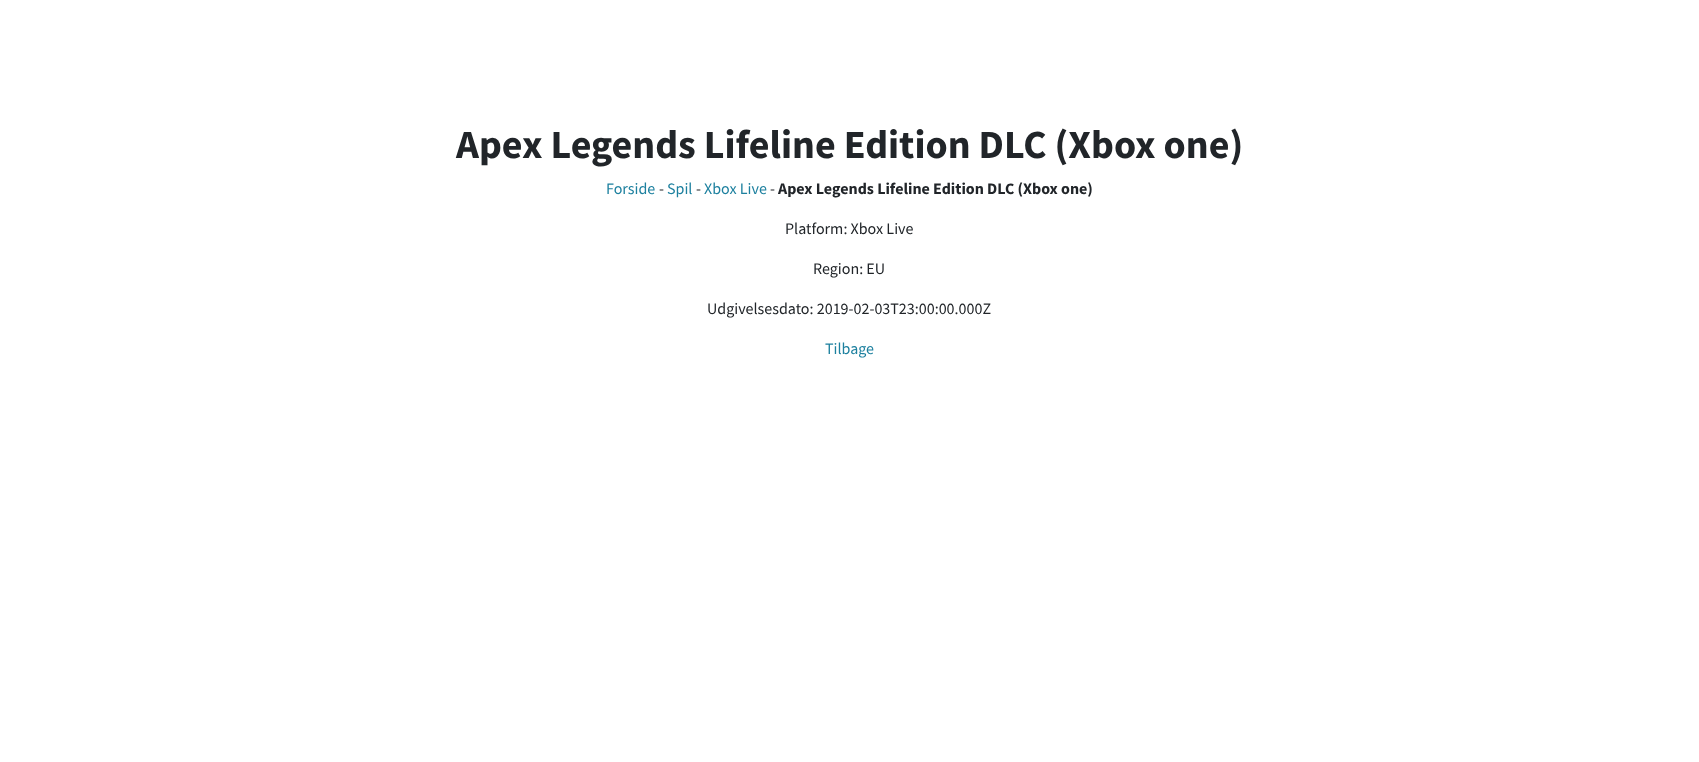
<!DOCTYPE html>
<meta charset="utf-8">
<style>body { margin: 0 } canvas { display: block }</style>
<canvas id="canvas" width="1699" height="762"></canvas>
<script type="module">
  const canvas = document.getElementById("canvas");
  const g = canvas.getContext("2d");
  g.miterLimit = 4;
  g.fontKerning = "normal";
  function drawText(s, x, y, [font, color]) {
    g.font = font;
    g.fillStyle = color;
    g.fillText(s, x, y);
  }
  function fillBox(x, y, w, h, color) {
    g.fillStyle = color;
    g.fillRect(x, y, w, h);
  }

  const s1 = ["bold 40px Source Sans Pro", "#212529"];
  const s2 = ["16px Source Sans Pro", "#1D809F"];
  const s3 = ["16px Source Sans Pro", "#212529"];
  const s4 = ["bold 16px Source Sans Pro", "#212529"];

  fillBox(0, 0, 1699, 762, "#FFFFFF");
  drawText("Apex Legends Lifeline Edition DLC (Xbox one)", 456, 158, s1);
  drawText("Forside", 606, 194, s2);
  drawText("-", 659, 194, s3);
  drawText("Spil", 667, 194, s2);
  drawText("-", 696, 194, s3);
  drawText("Xbox Live", 704, 194, s2);
  drawText("-", 770, 194, s3);
  drawText("Apex Legends Lifeline Edition DLC (Xbox one)", 778, 194, s4);
  drawText("Platform: Xbox Live", 785, 234, s3);
  drawText("Region: EU", 813, 274, s3);
  drawText("Udgivelsesdato: 2019-02-03T23:00:00.000Z", 707, 314, s3);
  drawText("Tilbage", 825, 354, s2);
</script>
